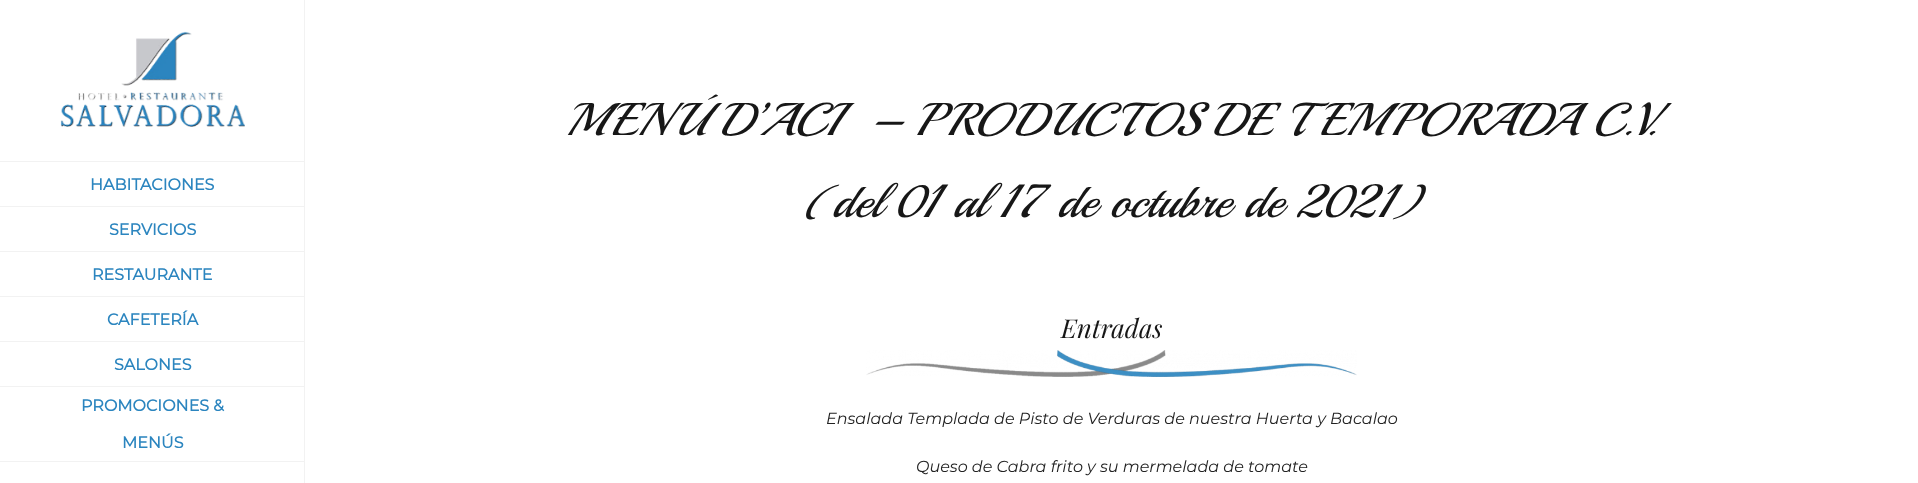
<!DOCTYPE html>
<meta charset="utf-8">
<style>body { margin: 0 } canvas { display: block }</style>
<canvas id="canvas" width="1918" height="483"></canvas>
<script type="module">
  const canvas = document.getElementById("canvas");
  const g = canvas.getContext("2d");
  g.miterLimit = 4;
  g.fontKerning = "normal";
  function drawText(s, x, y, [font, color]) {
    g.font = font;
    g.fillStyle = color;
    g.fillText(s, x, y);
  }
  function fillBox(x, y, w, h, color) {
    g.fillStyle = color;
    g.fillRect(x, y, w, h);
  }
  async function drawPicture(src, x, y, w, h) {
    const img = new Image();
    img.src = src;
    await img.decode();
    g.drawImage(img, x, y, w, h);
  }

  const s1 = ["bold 16px Montserrat", "#2B85BF"];
  const s2 = ["italic 46px Playball", "#171717"];
  const s3 = ["italic 26px Playfair Display", "#171717"];
  const s4 = ["italic 16px Montserrat", "#222222"];

  fillBox(0, 0, 1918, 483, "#FFFFFF");
  await drawPicture("pic1.png", 60, 31, 185, 96);
  fillBox(304, 0, 1, 483, "#F2F2F2");
  fillBox(0, 161, 305, 1, "#F2F2F2");
  fillBox(0, 206, 305, 1, "#F2F2F2");
  drawText("HABITACIONES", 90, 190, s1);
  fillBox(0, 251, 305, 1, "#F2F2F2");
  drawText("SERVICIOS", 109, 235, s1);
  fillBox(0, 296, 305, 1, "#F2F2F2");
  drawText("RESTAURANTE", 92, 280, s1);
  fillBox(0, 341, 305, 1, "#F2F2F2");
  drawText("CAFETERÍA", 107, 325, s1);
  fillBox(0, 386, 305, 1, "#F2F2F2");
  drawText("SALONES", 114, 370, s1);
  fillBox(0, 461, 305, 1, "#F2F2F2");
  drawText("PROMOCIONES &", 81, 411, s1);
  drawText("MENÚS", 122, 448, s1);
  drawText("MENÚ D’ACI  – PRODUCTOS DE TEMPORADA C.V.", 566, 135, s2);
  drawText("(del 01 al 17 de octubre de 2021)", 803, 217, s2);
  drawText("Entradas", 1061, 338, s3);
  await drawPicture("pic2.png", 866, 350, 491, 27);
  drawText("Ensalada Templada de Pisto de Verduras de nuestra Huerta y Bacalao", 826, 424, s4);
  drawText("Queso de Cabra frito y su mermelada de tomate", 916, 472, s4);
</script>
